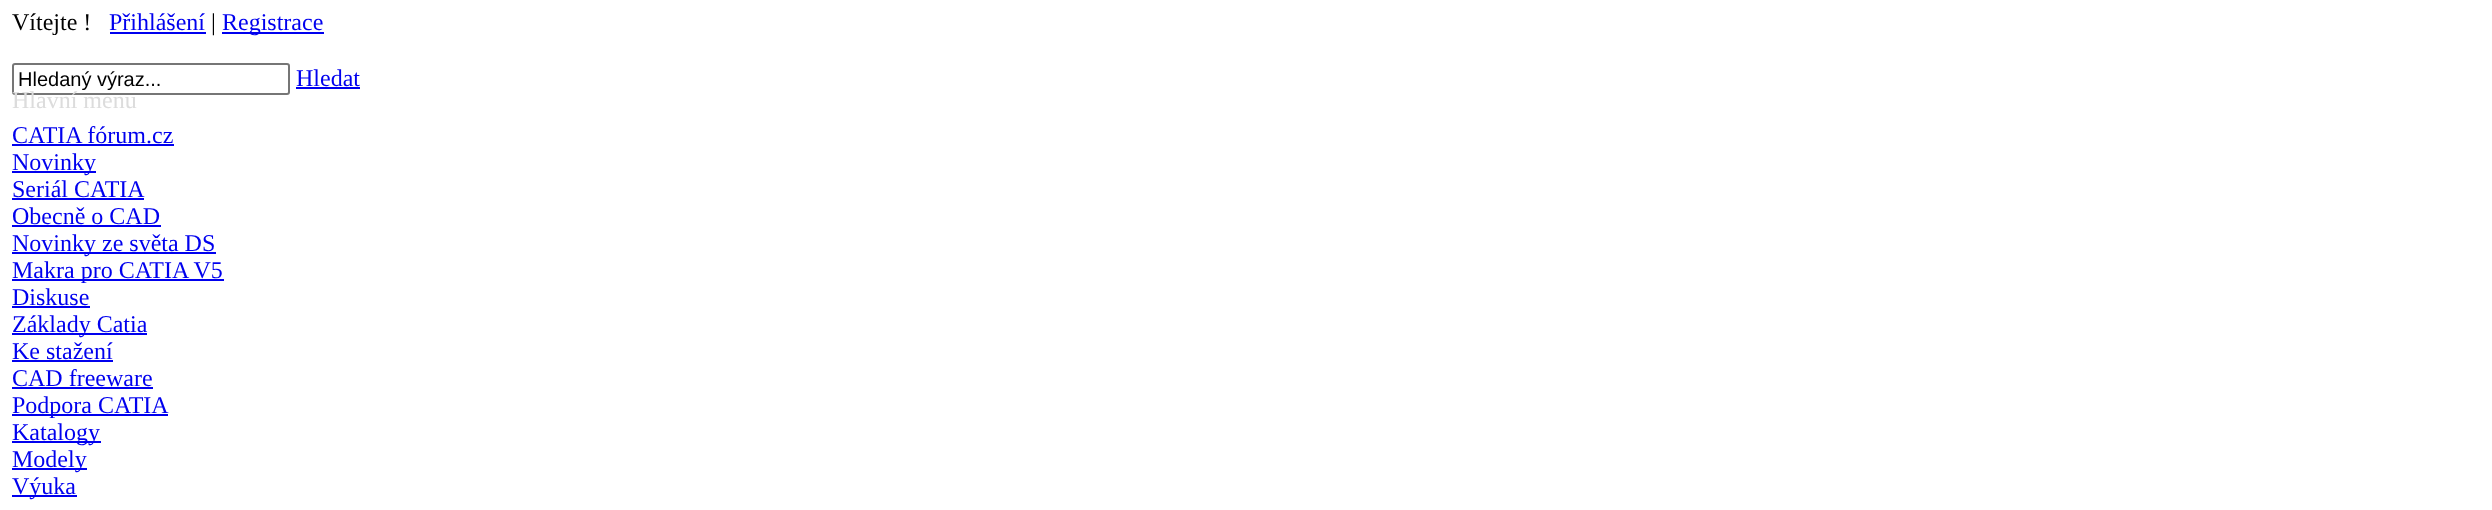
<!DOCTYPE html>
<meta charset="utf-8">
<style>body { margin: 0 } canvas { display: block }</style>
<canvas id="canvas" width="2492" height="510"></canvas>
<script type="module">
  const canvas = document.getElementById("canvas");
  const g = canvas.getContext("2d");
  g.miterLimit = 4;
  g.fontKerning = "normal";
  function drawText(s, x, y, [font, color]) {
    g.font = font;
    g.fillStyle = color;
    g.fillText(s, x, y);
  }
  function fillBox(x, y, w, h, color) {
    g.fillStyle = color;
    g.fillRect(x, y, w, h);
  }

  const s1 = ["24px Liberation Serif", "#000000"];
  const s2 = ["24px Liberation Serif", "#0000EE"];
  const s3 = ["20px Liberation Sans", "#000000"];
  const s4 = ["24px Liberation Serif", "#DCDCDC"];

  fillBox(0, 0, 2492, 510, "#FFFFFF");
  drawText("Vítejte !", 12, 30, s1);
  drawText("Přihlášení", 109, 30, s2);
  fillBox(110, 32, 96, 2, "#0000EE");
  drawText("|", 211, 30, s1);
  fillBox(222, 32, 102, 2, "#0000EE");
  drawText("Registrace", 222, 30, s2);
  g.beginPath();
  g.roundRect(13, 64, 276, 30, 2);
  g.strokeStyle = "#767676";
  g.lineWidth = 2;
  g.stroke();
  g.save();
  g.beginPath();
  g.rect(18, 68, 266, 22);
  g.clip();
  drawText("Hledaný výraz...", 18, 86, s3);
  g.restore();
  drawText("Hledat", 296, 86, s2);
  fillBox(296, 87, 64, 2, "#0000EE");
  drawText("Hlavní menu", 12, 108, s4);
  drawText("CATIA fórum.cz", 12, 143, s2);
  fillBox(12, 144, 162, 2, "#0000EE");
  fillBox(12, 171, 84, 2, "#0000EE");
  drawText("Novinky", 12, 170, s2);
  drawText("Seriál CATIA", 12, 197, s2);
  fillBox(12, 198, 132, 2, "#0000EE");
  drawText("Obecně o CAD", 12, 224, s2);
  fillBox(12, 225, 149, 2, "#0000EE");
  fillBox(12, 252, 204, 2, "#0000EE");
  drawText("Novinky ze světa DS", 12, 251, s2);
  fillBox(12, 279, 212, 2, "#0000EE");
  drawText("Makra pro CATIA V5", 12, 278, s2);
  drawText("Diskuse", 12, 305, s2);
  fillBox(12, 306, 78, 2, "#0000EE");
  fillBox(12, 333, 135, 2, "#0000EE");
  drawText("Základy Catia", 12, 332, s2);
  drawText("Ke stažení", 12, 359, s2);
  fillBox(12, 360, 101, 2, "#0000EE");
  drawText("CAD freeware", 12, 386, s2);
  fillBox(12, 387, 141, 2, "#0000EE");
  fillBox(12, 414, 156, 2, "#0000EE");
  drawText("Podpora CATIA", 12, 413, s2);
  fillBox(12, 441, 89, 2, "#0000EE");
  drawText("Katalogy", 12, 440, s2);
  fillBox(12, 468, 75, 2, "#0000EE");
  drawText("Modely", 12, 467, s2);
  fillBox(12, 495, 65, 2, "#0000EE");
  drawText("Výuka", 12, 494, s2);
</script>
